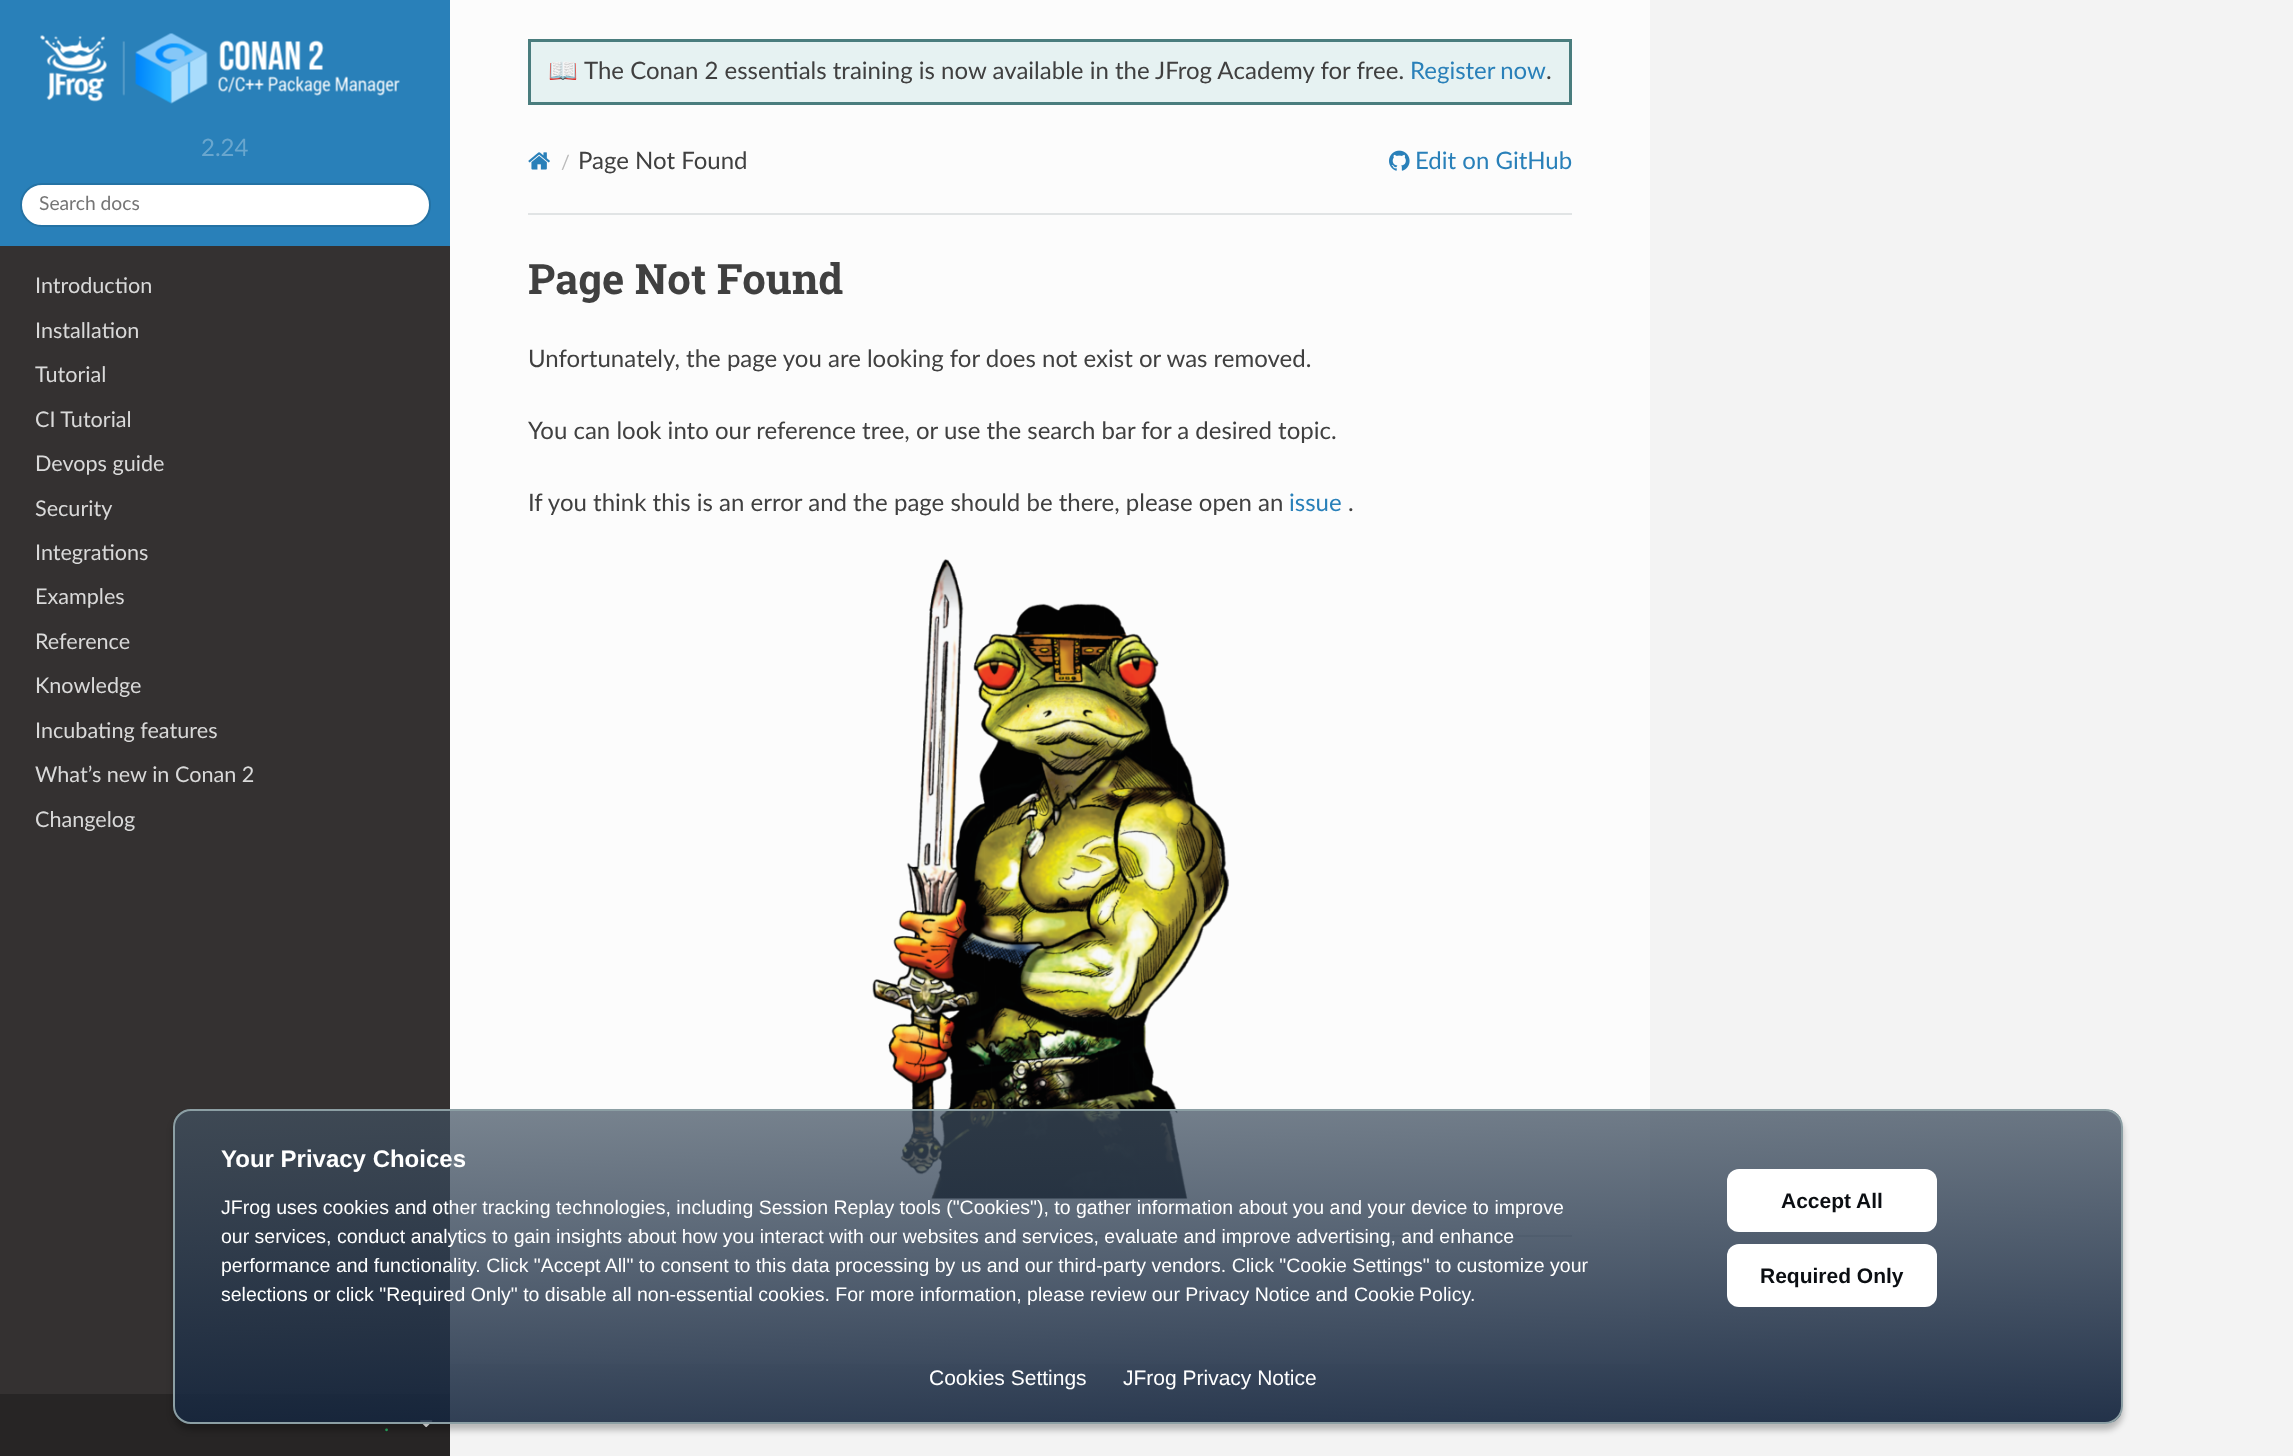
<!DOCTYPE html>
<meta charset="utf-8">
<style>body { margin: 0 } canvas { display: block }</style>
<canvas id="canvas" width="2293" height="1456"></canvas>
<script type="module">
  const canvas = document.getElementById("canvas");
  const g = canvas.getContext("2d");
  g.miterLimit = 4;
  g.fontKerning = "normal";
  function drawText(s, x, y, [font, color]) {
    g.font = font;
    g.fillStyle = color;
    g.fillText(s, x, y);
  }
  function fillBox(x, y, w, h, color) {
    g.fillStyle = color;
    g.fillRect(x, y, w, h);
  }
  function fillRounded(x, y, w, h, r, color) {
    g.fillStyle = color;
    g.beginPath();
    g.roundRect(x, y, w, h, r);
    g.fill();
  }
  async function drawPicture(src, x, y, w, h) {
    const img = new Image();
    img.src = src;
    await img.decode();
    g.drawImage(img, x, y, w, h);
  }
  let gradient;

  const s1 = ["24px Lato", "#69A6CE"];
  const s2 = ["19.25px Lato", "#757575"];
  const s3 = ["21.6px Lato", "#D9D9D9"];
  const s4 = ["24px Noto Color Emoji", "#404040"];
  const s5 = ["24px Lato", "#404040"];
  const s6 = ["24px Lato", "#2980B9"];
  const s7 = ["19.5px Lato", "#BBBBBB"];
  const s8 = ["bold 42px Roboto Slab", "#404040"];
  const s9 = ["21.6px Lato", "#27AE60"];
  const s10 = ["bold 24px Liberation Sans", "#FFFFFF"];
  const s11 = ["19.5px Liberation Sans", "#FFFFFF"];
  const s12 = ["bold 21px Liberation Sans", "#0B0E12"];
  const s13 = ["21px Liberation Sans", "#FFFFFF"];

  fillBox(0, 0, 2293, 1456, "#F3F3F3");
  fillBox(0, 246, 450, 1148, "#343131");
  fillBox(0, 0, 450, 246, "#2980B9");
  await drawPicture("pic1.png", 40, 33, 360, 71);
  drawText("2.24", 201, 156, s1);
  g.fillStyle = "#FFFFFF";
  g.beginPath();
  g.roundRect(21, 184, 409, 42, 21);
  g.fill();
  g.strokeStyle = "#2472A4";
  g.lineWidth = 2;
  g.stroke();
  drawText("Search docs", 39, 210, s2);
  drawText("Introduction", 35, 293, s3);
  drawText("Installation", 35, 338, s3);
  drawText("Tutorial", 35, 382, s3);
  drawText("CI Tutorial", 35, 427, s3);
  drawText("Devops guide", 35, 471, s3);
  drawText("Security", 35, 516, s3);
  drawText("Integrations", 35, 560, s3);
  drawText("Examples", 35, 604, s3);
  drawText("Reference", 35, 649, s3);
  drawText("Knowledge", 35, 693, s3);
  drawText("Incubating features", 35, 738, s3);
  drawText("What’s new in Conan 2", 35, 782, s3);
  drawText("Changelog", 35, 827, s3);
  fillBox(450, 0, 1200, 1364, "#FCFCFC");
  g.fillStyle = "#E6F2F2";
  g.beginPath();
  g.rect(529.5, 40.5, 1041, 63);
  g.fill();
  g.strokeStyle = "#4A7D7E";
  g.lineWidth = 3;
  g.stroke();
  drawText("📖", 548, 79, s4);
  drawText("The Conan 2 essentials training is now available in the JFrog Academy for free.", 584, 79, s5);
  g.wordSpacing = "-1px";
  drawText("Register now", 1410, 79, s6);
  g.wordSpacing = "0px";
  drawText(".", 1546, 79, s5);
  await drawPicture("pic2.png", 528, 152, 22, 18);
  drawText("/", 561, 169, s7);
  drawText("Page Not Found", 578, 169, s5);
  await drawPicture("pic3.png", 1389, 150, 21, 21);
  drawText("Edit on GitHub", 1415, 169, s6);
  fillBox(528, 213, 1044, 2, "#E1E4E5");
  drawText("Page Not Found", 528, 294, s8);
  drawText("Unfortunately, the page you are looking for does not exist or was removed.", 528, 367, s5);
  drawText("You can look into our reference tree, or use the search bar for a desired topic.", 528, 439, s5);
  drawText("If you think this is an error and the page should be there, please open an", 528, 511, s5);
  drawText("issue", 1289, 511, s6);
  drawText(".", 1348, 511, s5);
  await drawPicture("pic4.png", 872, 559, 358, 640);
  fillBox(528, 1235, 1044, 2, "#E1E4E5");
  fillBox(0, 1394, 450, 62, "#272525");
  await drawPicture("pic5.png", 420, 1420, 13, 8);
  drawText(".", 384, 1431, s9);
  g.save();
  g.beginPath();
  g.moveTo(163, 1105);
  g.lineTo(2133, 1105);
  g.lineTo(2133, 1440);
  g.lineTo(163, 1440);
  g.closePath();
  g.moveTo(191, 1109);
  g.lineTo(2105, 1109);
  g.bezierCurveTo(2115, 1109, 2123, 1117, 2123, 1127);
  g.lineTo(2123, 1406);
  g.bezierCurveTo(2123, 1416, 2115, 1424, 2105, 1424);
  g.lineTo(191, 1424);
  g.bezierCurveTo(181, 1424, 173, 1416, 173, 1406);
  g.lineTo(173, 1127);
  g.bezierCurveTo(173, 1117, 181, 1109, 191, 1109);
  g.closePath();
  g.clip("evenodd");
  g.fillStyle = "rgba(0, 0, 0, 0.25)";
  g.filter = "blur(3px)";
  g.beginPath();
  g.roundRect(173, 1115, 1950, 315, 18);
  g.fill();
  g.filter = "none";
  g.restore();
  g.save();
  g.beginPath();
  g.roundRect(173, 1109, 1950, 315, 18);
  g.clip();
  gradient = g.createLinearGradient(1141, 1076, 1154, 1456);
  gradient.addColorStop(0, "rgba(67, 83, 99, 0.7)");
  gradient.addColorStop(1, "rgba(12, 29, 55, 0.9)");
  g.fillStyle = gradient;
  g.fillRect(174, 1110, 1947, 312);
  g.restore();
  g.beginPath();
  g.roundRect(174, 1110, 1948, 313, 17);
  g.strokeStyle = "#8C9FA4";
  g.lineWidth = 2;
  g.stroke();
  drawText("Your Privacy Choices", 221, 1167, s10);
  drawText("JFrog uses cookies and other tracking technologies, including Session Replay tools (\"Cookies\"), to gather information about you and your device to improve", 221, 1214, s11);
  drawText("our services, conduct analytics to gain insights about how you interact with our websites and services, evaluate and improve advertising, and enhance", 221, 1243, s11);
  drawText("performance and functionality. Click \"Accept All\" to consent to this data processing by us and our third-party vendors. Click \"Cookie Settings\" to customize your", 221, 1272, s11);
  drawText("selections or click \"Required Only\" to disable all non-essential cookies. For more information, please review our Privacy Notice and", 221, 1301, s11);
  g.wordSpacing = "-1px";
  drawText("Cookie Policy", 1354, 1301, s11);
  g.wordSpacing = "0px";
  drawText(".", 1470, 1301, s11);
  fillRounded(1727, 1169, 210, 63, 12, "#FFFFFF");
  drawText("Accept All", 1781, 1208, s12);
  fillRounded(1727, 1244, 210, 63, 12, "#FFFFFF");
  drawText("Required Only", 1760, 1283, s12);
  drawText("Cookies Settings", 929, 1385, s13);
  drawText("JFrog Privacy Notice", 1123, 1385, s13);
</script>
